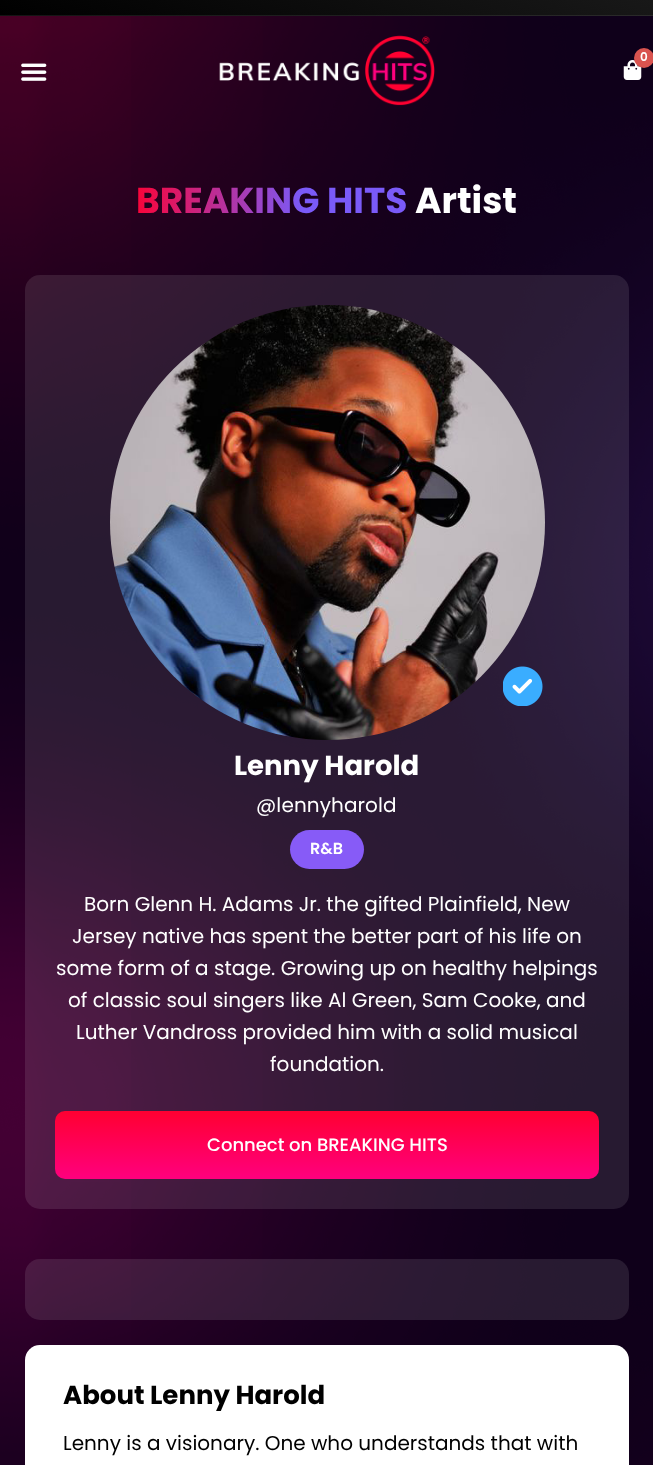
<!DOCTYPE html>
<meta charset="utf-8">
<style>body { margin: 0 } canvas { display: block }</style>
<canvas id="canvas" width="653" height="1465"></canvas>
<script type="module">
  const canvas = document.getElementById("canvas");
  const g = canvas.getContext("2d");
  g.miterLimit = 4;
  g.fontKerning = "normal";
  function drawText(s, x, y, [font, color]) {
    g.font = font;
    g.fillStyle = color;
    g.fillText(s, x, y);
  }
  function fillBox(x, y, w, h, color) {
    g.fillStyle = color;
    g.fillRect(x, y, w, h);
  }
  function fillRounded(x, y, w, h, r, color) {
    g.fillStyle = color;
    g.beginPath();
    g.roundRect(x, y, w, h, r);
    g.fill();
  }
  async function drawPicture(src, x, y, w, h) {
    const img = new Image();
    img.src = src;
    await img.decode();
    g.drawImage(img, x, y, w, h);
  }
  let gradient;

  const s1 = ["600 12px Poppins", "#FFFFFF"];
  const s2 = ["bold 36px Poppins", "#FFFFFF"];
  const s3 = ["bold 27.5px Poppins", "#FFFFFF"];
  const s4 = ["20px Poppins", "#FFFFFF"];
  const s5 = ["600 16px Poppins", "#FFFFFF"];
  const s6 = ["500 18px Poppins", "#FFFFFF"];
  const s7 = ["bold 26px Poppins", "#000000"];
  const s8 = ["20px Poppins", "#000000"];

  fillBox(0, 0, 653, 1465, "#FFFFFF");
  await drawPicture("pic1.png", 0, 16, 653, 1449);
  gradient = g.createLinearGradient(278, 127, 375, -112);
  gradient.addColorStop(0, "#000000");
  gradient.addColorStop(1, "#181818");
  g.fillStyle = gradient;
  g.fillRect(0, 0, 653, 15);
  gradient = g.createLinearGradient(278, 142, 375, -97);
  gradient.addColorStop(0, "#000000");
  gradient.addColorStop(1, "#181818");
  g.fillStyle = gradient;
  g.fillRect(0, 15, 653, 1);
  fillBox(0, 15, 653, 1, "rgba(255, 255, 255, 0.08)");
  await drawPicture("pic2.png", 219, 35, 216, 71);
  await drawPicture("pic3.png", 623, 60, 19, 20);
  g.fillStyle = "#D9534F";
  g.beginPath();
  g.arc(644, 58, 10, 0, Math.PI * 2);
  g.fill();
  drawText("0", 640, 61, s1);
  await drawPicture("pic4.png", 21, 63, 26, 18);
  g.font = "bold 36px Poppins";
  gradient = g.createLinearGradient(129, 200, 408, 200);
  gradient.addColorStop(0, "#FF0031");
  gradient.addColorStop(0.62, "#7A5AF8");
  g.fillStyle = gradient;
  g.fillText("BREAKING HITS", 136, 213);
  drawText("Artist", 415, 213, s2);
  fillRounded(25, 275, 604, 934, 15, "rgba(255, 255, 255, 0.1)");
  await drawPicture("pic5.png", 110, 305, 435, 435);
  await drawPicture("pic6.png", 503, 666, 40, 40);
  drawText("Lenny Harold", 234, 775, s3);
  g.letterSpacing = "0.1px";
  drawText("@lennyharold", 256, 812, s4);
  fillRounded(290, 830, 74, 39, 19.5, "#875BF7");
  g.letterSpacing = "0px";
  drawText("R&B", 310, 854, s5);
  drawText("Born Glenn H. Adams Jr. the gifted Plainfield, New", 84, 911, s4);
  drawText("Jersey native has spent the better part of his life on", 72, 943, s4);
  drawText("some form of a stage. Growing up on healthy helpings", 56, 975, s4);
  drawText("of classic soul singers like Al Green, Sam Cooke, and", 68, 1007, s4);
  drawText("Luther Vandross provided him with a solid musical", 76, 1039, s4);
  drawText("foundation.", 270, 1071, s4);
  gradient = g.createLinearGradient(327, 1111, 327, 1179);
  gradient.addColorStop(0, "#FF0031");
  gradient.addColorStop(1, "#FF007E");
  g.fillStyle = gradient;
  g.beginPath();
  g.roundRect(55, 1111, 544, 68, 10);
  g.fill();
  drawText("Connect on BREAKING HITS", 207, 1151, s6);
  fillRounded(25, 1259, 604, 61, 15, "rgba(255, 255, 255, 0.1)");
  fillRounded(25, 1345, 604, 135, 15, "#FFFFFF");
  drawText("About Lenny Harold", 63, 1404, s7);
  drawText("Lenny is a visionary. One who understands that with", 63, 1450, s8);
</script>
